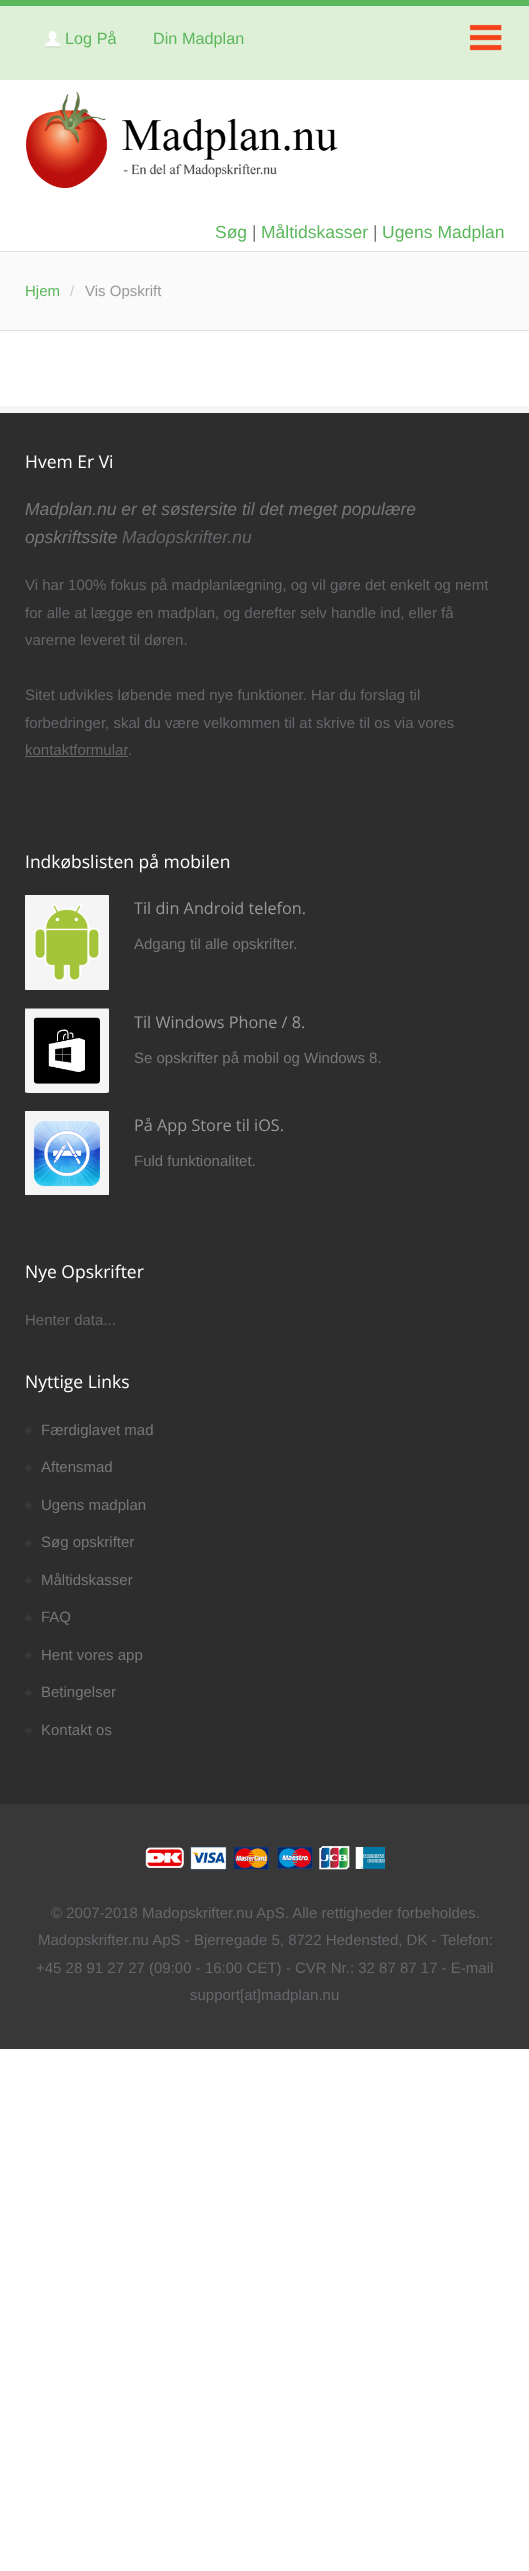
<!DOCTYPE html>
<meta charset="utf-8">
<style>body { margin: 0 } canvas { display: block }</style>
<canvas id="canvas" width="529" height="2571"></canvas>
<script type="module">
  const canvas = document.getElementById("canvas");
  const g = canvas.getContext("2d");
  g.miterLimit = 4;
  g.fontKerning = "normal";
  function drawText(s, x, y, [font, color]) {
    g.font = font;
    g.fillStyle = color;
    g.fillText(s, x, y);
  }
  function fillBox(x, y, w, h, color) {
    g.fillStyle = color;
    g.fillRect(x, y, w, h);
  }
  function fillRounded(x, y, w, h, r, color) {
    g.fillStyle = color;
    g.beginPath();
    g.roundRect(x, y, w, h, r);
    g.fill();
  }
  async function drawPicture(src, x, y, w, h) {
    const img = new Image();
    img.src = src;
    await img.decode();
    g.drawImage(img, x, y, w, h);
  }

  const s1 = ["16.25px Liberation Sans", "#5BB75B"];
  const s2 = ["17.5px Liberation Sans", "#5BB75B"];
  const s3 = ["17.5px Liberation Sans", "#777777"];
  const s4 = ["15px Liberation Sans", "#5BB75B"];
  const s5 = ["15px Liberation Sans", "#CCCCCC"];
  const s6 = ["15px Liberation Sans", "#999999"];
  const s7 = ["17.5px Open Sans", "#FFFFFF"];
  const s8 = ["italic 17.5px Liberation Sans", "#777777"];
  const s9 = ["italic 17.5px Liberation Sans", "#65676B"];
  const s10 = ["15px Liberation Sans", "#65676B"];
  const s11 = ["16.25px Open Sans", "#999999"];
  const s12 = ["15px Liberation Sans", "#777777"];

  fillBox(0, 0, 529, 2571, "#FFFFFF");
  fillBox(0, 253, 529, 77, "#FAFAFA");
  fillBox(0, 330, 529, 1, "#E0E0E0");
  fillBox(0, 0, 529, 6, "#5BB75B");
  fillBox(0, 251, 529, 1, "#E0E0E0");
  fillBox(0, 6, 529, 74, "#DFF0D8");
  await drawPicture("pic1.png", 45, 31, 16, 17);
  drawText("Log På", 65, 44, s1);
  drawText("Din Madplan", 153, 44, s1);
  fillBox(469, 24, 33, 27, "#F4421A");
  await drawPicture("pic2.png", 468, 19, 37, 37);
  await drawPicture("pic3.png", 25, 92, 313, 96);
  drawText("Søg", 215, 238, s2);
  drawText("|", 252, 238, s3);
  drawText("Måltidskasser", 261, 238, s2);
  drawText("|", 373, 238, s3);
  drawText("Ugens Madplan", 382, 238, s2);
  drawText("Hjem", 25, 296, s4);
  drawText("/", 70, 296, s5);
  drawText("Vis Opskrift", 85, 296, s6);
  fillBox(0, 406, 529, 7, "#F5F5F5");
  fillBox(0, 1804, 529, 245, "#383838");
  fillBox(0, 413, 529, 1391, "#2D2D2D");
  drawText("Hvem Er Vi", 25, 468, s7);
  drawText("Madplan.nu er et søstersite til det meget populære", 25, 515, s8);
  drawText("opskriftssite", 25, 543, s8);
  drawText("Madopskrifter.nu", 122, 543, s9);
  drawText("Vi har 100% fokus på madplanlægning, og vil gøre det enkelt og nemt", 25, 590, s10);
  drawText("for alle at lægge en madplan, og derefter selv handle ind, eller få", 25, 618, s10);
  drawText("varerne leveret til døren.", 25, 645, s10);
  drawText("Sitet udvikles løbende med nye funktioner. Har du forslag til", 25, 700, s10);
  drawText("forbedringer, skal du være velkommen til at skrive til os via vores", 25, 728, s10);
  drawText("kontaktformular", 25, 755, s10);
  fillBox(25, 756, 103, 1, "#65676B");
  drawText(".", 128, 755, s10);
  drawText("Indkøbslisten på mobilen", 25, 868, s7);
  fillRounded(25, 895, 84, 95, 4, "#F5F5F5");
  g.beginPath();
  g.moveTo(29.5, 899.5);
  g.lineTo(104.5, 899.5);
  g.lineTo(104.5, 985.5);
  g.lineTo(29.5, 985.5);
  g.closePath();
  g.strokeStyle = "#F5F5F5";
  g.lineWidth = 8.8;
  g.stroke();
  await drawPicture("pic4.png", 34, 904, 66, 77);
  drawText("Til din Android telefon.", 134, 914, s11);
  drawText("Adgang til alle opskrifter.", 134, 949, s12);
  fillRounded(25, 1009, 84, 84, 4, "#F5F5F5");
  g.beginPath();
  g.moveTo(29.5, 1013);
  g.lineTo(104.5, 1013);
  g.lineTo(104.5, 1088);
  g.lineTo(29.5, 1088);
  g.closePath();
  g.stroke();
  await drawPicture("pic5.png", 33, 1017, 67, 67);
  drawText("Til Windows Phone / 8.", 134, 1028, s11);
  drawText("Se opskrifter på mobil og Windows 8.", 134, 1063, s12);
  fillRounded(25, 1111, 84, 84, 4, "#F5F5F5");
  g.beginPath();
  g.moveTo(29.5, 1115.5);
  g.lineTo(104.5, 1115.5);
  g.lineTo(104.5, 1190.5);
  g.lineTo(29.5, 1190.5);
  g.closePath();
  g.stroke();
  await drawPicture("pic6.png", 33, 1120, 67, 67);
  drawText("På App Store til iOS.", 134, 1131, s11);
  drawText("Fuld funktionalitet.", 134, 1166, s12);
  drawText("Nye Opskrifter", 25, 1278, s7);
  drawText("Henter data...", 25, 1325, s10);
  drawText("Nyttige Links", 25, 1388, s7);
  await drawPicture("pic7.png", 25, 1426, 8, 9);
  drawText("Færdiglavet mad", 41, 1435, s12);
  await drawPicture("pic8.png", 25, 1464, 8, 9);
  drawText("Aftensmad", 41, 1472, s12);
  await drawPicture("pic7.png", 25, 1501, 8, 9);
  drawText("Ugens madplan", 41, 1510, s12);
  await drawPicture("pic8.png", 25, 1539, 8, 9);
  drawText("Søg opskrifter", 41, 1547, s12);
  await drawPicture("pic7.png", 25, 1576, 8, 9);
  drawText("Måltidskasser", 41, 1585, s12);
  await drawPicture("pic8.png", 25, 1614, 8, 9);
  drawText("FAQ", 41, 1622, s12);
  await drawPicture("pic7.png", 25, 1651, 8, 9);
  drawText("Hent vores app", 41, 1660, s12);
  await drawPicture("pic8.png", 25, 1689, 8, 9);
  drawText("Betingelser", 41, 1697, s12);
  await drawPicture("pic7.png", 25, 1726, 8, 9);
  drawText("Kontakt os", 41, 1735, s12);
  await drawPicture("pic9.png", 145, 1846, 240, 24);
  drawText("© 2007-2018 Madopskrifter.nu ApS. Alle rettigheder forbeholdes.", 51, 1918, s10);
  drawText("Madopskrifter.nu ApS - Bjerregade 5, 8722 Hedensted, DK - Telefon:", 38, 1945, s10);
  drawText("+45 28 91 27 27 (09:00 - 16:00 CET) - CVR Nr.: 32 87 87 17 - E-mail", 36, 1973, s10);
  drawText("support[at]madplan.nu", 190, 2000, s10);
</script>
